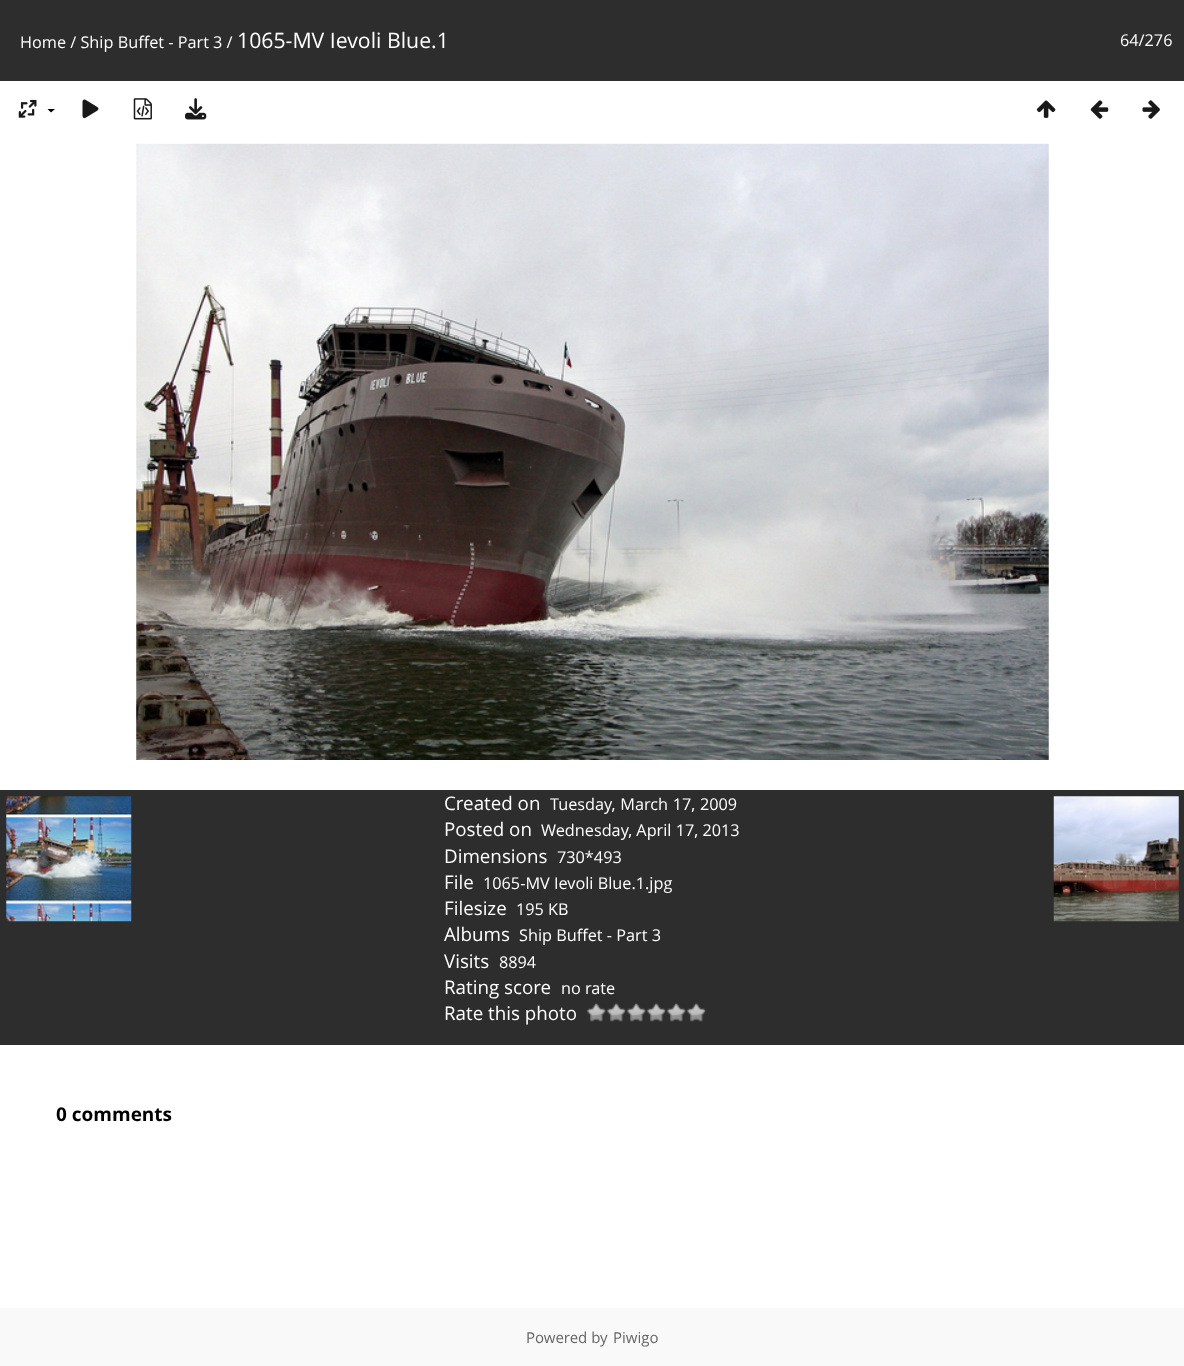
<!DOCTYPE html>
<meta charset="utf-8">
<style>body { margin: 0 } canvas { display: block }</style>
<canvas id="canvas" width="1184" height="1366"></canvas>
<script type="module">
  const canvas = document.getElementById("canvas");
  const g = canvas.getContext("2d");
  g.miterLimit = 4;
  g.fontKerning = "normal";
  function drawText(s, x, y, [font, color]) {
    g.font = font;
    g.fillStyle = color;
    g.fillText(s, x, y);
  }
  function fillBox(x, y, w, h, color) {
    g.fillStyle = color;
    g.fillRect(x, y, w, h);
  }
  async function drawPicture(src, x, y, w, h) {
    const img = new Image();
    img.src = src;
    await img.decode();
    g.drawImage(img, x, y, w, h);
  }

  const s1 = ["16.25px Open Sans", "#FFFFFF"];
  const s2 = ["21.25px Open Sans", "#FFFFFF"];
  const s3 = ["18.75px Open Sans", "#FFFFFF"];
  const s4 = ["bold 19px Open Sans", "#000000"];
  const s5 = ["15px Open Sans", "#666666"];

  fillBox(0, 0, 1184, 1366, "#FFFFFF");
  fillBox(0, 0, 1184, 81, "#2D2D2D");
  drawText("Home / Ship Buffet - Part 3 /", 20, 48, s1);
  drawText("1065-MV Ievoli Blue.1", 237, 48, s2);
  drawText("64/276", 1120, 46, s1);
  await drawPicture("pic1.png", 18, 99, 19, 19);
  g.fillStyle = "#000000";
  g.beginPath();
  g.moveTo(47.5, 109);
  g.lineTo(55, 109);
  g.lineTo(51, 112.5);
  g.closePath();
  g.fill();
  await drawPicture("pic2.png", 82, 99, 17, 20);
  await drawPicture("pic3.png", 133, 98, 19, 22);
  await drawPicture("pic4.png", 185, 98, 22, 22);
  await drawPicture("pic5.png", 1036, 100, 20, 18);
  await drawPicture("pic6.png", 1090, 100, 19, 19);
  await drawPicture("pic7.png", 1142, 100, 18, 19);
  await drawPicture("pic8.png", 136, 143, 913, 617);
  fillBox(0, 790, 1184, 255, "#2D2D2D");
  drawText("Created on", 444, 810, s3);
  g.wordSpacing = "0.5px";
  drawText("Tuesday, March 17, 2009", 550, 810, s1);
  g.wordSpacing = "0px";
  drawText("Posted on", 444, 836, s3);
  drawText("Wednesday, April 17, 2013", 541, 836, s1);
  drawText("Dimensions", 444, 863, s3);
  drawText("730*493", 557, 863, s1);
  drawText("File", 444, 889, s3);
  drawText("1065-MV Ievoli Blue.1.jpg", 483, 889, s1);
  drawText("Filesize", 444, 915, s3);
  drawText("195 KB", 516, 915, s1);
  drawText("Albums", 444, 941, s3);
  drawText("Ship Buffet - Part 3", 519, 941, s1);
  drawText("Visits", 444, 968, s3);
  drawText("8894", 499, 968, s1);
  drawText("Rating score", 444, 994, s3);
  drawText("no rate", 561, 994, s1);
  drawText("Rate this photo", 444, 1020, s3);
  await drawPicture("pic9.png", 586, 1003, 20, 19);
  await drawPicture("pic9.png", 606, 1003, 20, 19);
  await drawPicture("pic9.png", 626, 1003, 20, 19);
  await drawPicture("pic9.png", 646, 1003, 20, 19);
  await drawPicture("pic9.png", 666, 1003, 20, 19);
  await drawPicture("pic9.png", 686, 1003, 20, 19);
  await drawPicture("pic10.png", 6, 796, 126, 126);
  await drawPicture("pic11.png", 1053, 796, 126, 126);
  drawText("0 comments", 56, 1121, s4);
  fillBox(0, 1308, 1184, 58, "#F9F9F9");
  drawText("Powered by", 526, 1343, s5);
  drawText("Piwigo", 613, 1343, s5);
</script>
